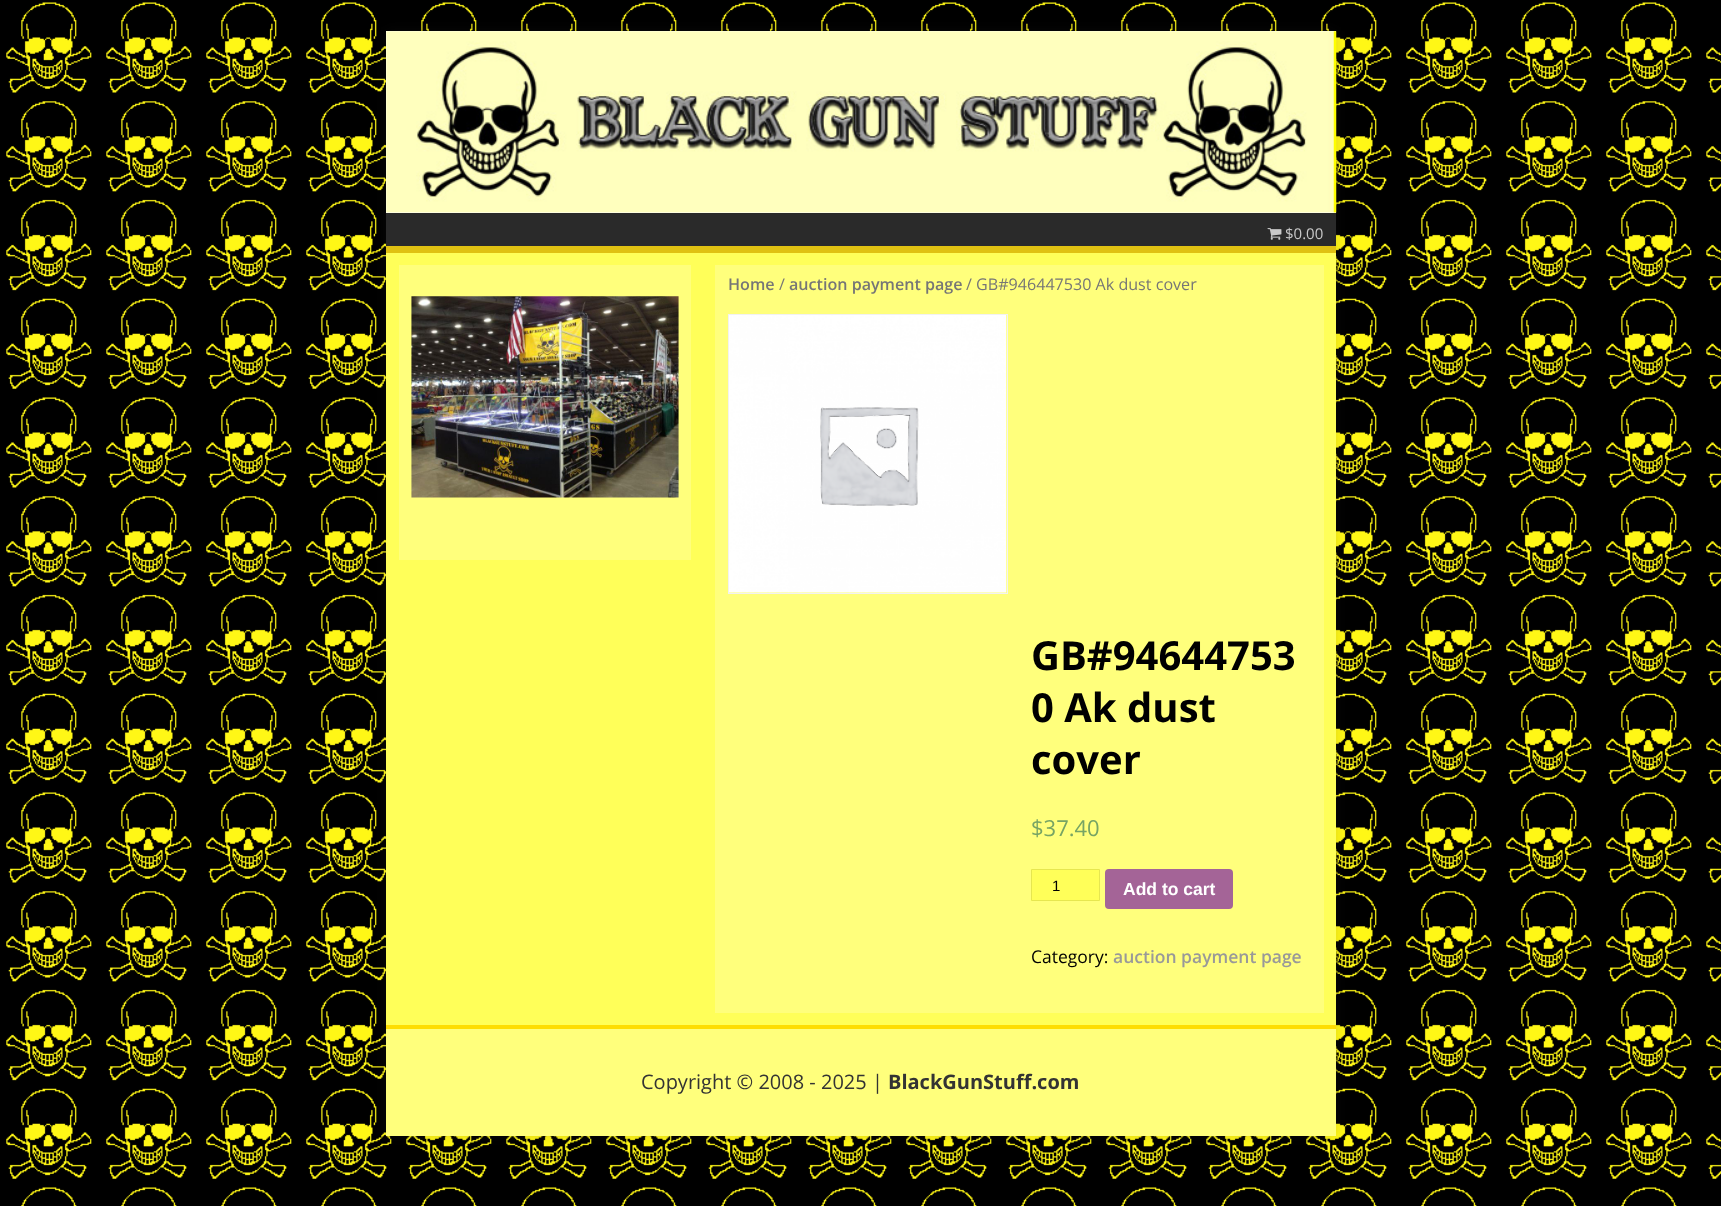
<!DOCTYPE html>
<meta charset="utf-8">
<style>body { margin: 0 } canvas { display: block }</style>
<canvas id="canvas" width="1721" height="1206"></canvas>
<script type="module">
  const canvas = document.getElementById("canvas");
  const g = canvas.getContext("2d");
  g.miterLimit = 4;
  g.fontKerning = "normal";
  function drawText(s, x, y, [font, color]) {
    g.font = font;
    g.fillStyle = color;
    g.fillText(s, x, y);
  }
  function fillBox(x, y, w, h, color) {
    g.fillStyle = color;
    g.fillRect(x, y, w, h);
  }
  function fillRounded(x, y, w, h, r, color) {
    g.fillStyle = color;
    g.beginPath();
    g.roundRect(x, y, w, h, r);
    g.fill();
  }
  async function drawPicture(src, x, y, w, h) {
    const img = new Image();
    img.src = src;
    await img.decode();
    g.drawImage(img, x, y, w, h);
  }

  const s1 = ["15px Open Sans", "#C9C9C9"];
  const s2 = ["600 16.1px Open Sans", "#767676"];
  const s3 = ["16.1px Open Sans", "#767676"];
  const s4 = ["bold 40px Open Sans", "#000000"];
  const s5 = ["22px Open Sans", "#77A464"];
  const s6 = ["15px Liberation Sans", "#000000"];
  const s7 = ["bold 17.5px Liberation Sans", "#FFFFFF"];
  const s8 = ["17.5px Open Sans", "#000000"];
  const s9 = ["600 17.5px Open Sans", "#999999"];
  const s10 = ["20px Open Sans", "#333333"];
  const s11 = ["bold 20px Open Sans", "#333333"];

  fillBox(0, 0, 1721, 1206, "#FFFFFF");
  await drawPicture("pic1.png", 0, 0, 1721, 1206);
  g.fillStyle = "rgba(50, 50, 50, 0.17)";
  g.filter = "blur(6px)";
  g.beginPath();
  g.rect(386, 31, 950, 1105);
  g.fill();
  g.filter = "none";
  fillBox(386, 253, 950, 772, "#FFFF59");
  fillBox(386, 31, 950, 182, "#FFFFFF");
  await drawPicture("pic2.png", 386, 31, 951, 182);
  fillBox(386, 213, 950, 33, "#2A2A2A");
  fillBox(386, 246, 950, 7, "#E0C112");
  await drawPicture("pic3.png", 1267, 228, 15, 12);
  drawText("$0.00", 1285, 239, s1);
  fillBox(399, 265, 292, 295, "#FFFF7C");
  await drawPicture("pic4.png", 411, 296, 268, 202);
  fillBox(715, 265, 609, 748, "#FFFF7C");
  drawText("Home", 728, 290, s2);
  drawText("/", 779, 290, s3);
  drawText("auction payment page", 789, 290, s2);
  drawText("/ GB#946447530 Ak dust cover", 966, 290, s3);
  g.strokeStyle = "#F2F2F2";
  g.strokeRect(728.5, 314.5, 279, 279);
  await drawPicture("pic5.png", 729, 315, 278, 278);
  drawText("GB#94644753", 1031, 670, s4);
  drawText("0 Ak dust", 1031, 722, s4);
  drawText("cover", 1031, 774, s4);
  drawText("$37.40", 1031, 836, s5);
  g.fillStyle = "#FFFF59";
  g.beginPath();
  g.rect(1031.5, 869.5, 68, 31);
  g.fill();
  g.strokeStyle = "#E6E650";
  g.stroke();
  drawText("1", 1052, 891, s6);
  fillRounded(1105, 869, 128, 40, 4, "#A46497");
  drawText("Add to cart", 1123, 895, s7);
  drawText("Category:", 1031, 963, s8);
  drawText("auction payment page", 1113, 963, s9);
  fillBox(386, 1029, 950, 107, "#FFFF7C");
  fillBox(386, 1025, 950, 4, "#FEDD02");
  drawText("Copyright © 2008 - 2025 |", 641, 1089, s10);
  drawText("BlackGunStuff.com", 888, 1089, s11);
</script>
